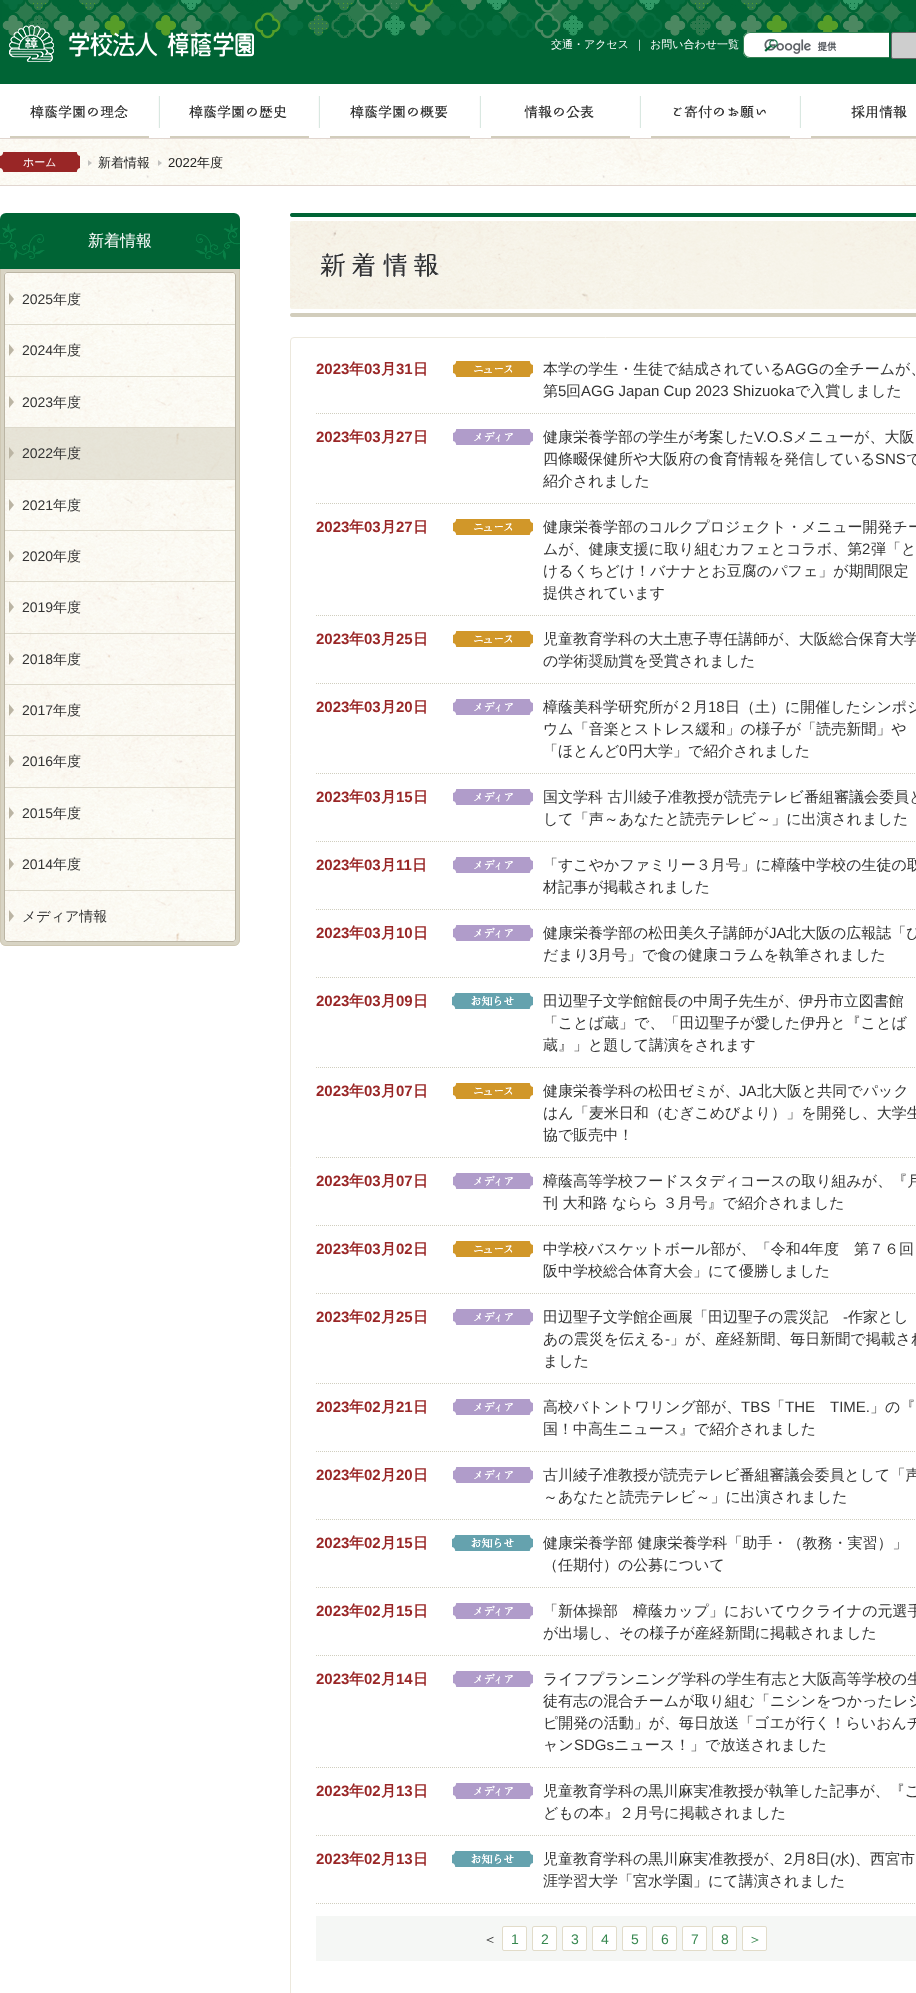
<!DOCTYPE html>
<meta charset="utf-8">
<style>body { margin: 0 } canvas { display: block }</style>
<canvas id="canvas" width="916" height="1993"></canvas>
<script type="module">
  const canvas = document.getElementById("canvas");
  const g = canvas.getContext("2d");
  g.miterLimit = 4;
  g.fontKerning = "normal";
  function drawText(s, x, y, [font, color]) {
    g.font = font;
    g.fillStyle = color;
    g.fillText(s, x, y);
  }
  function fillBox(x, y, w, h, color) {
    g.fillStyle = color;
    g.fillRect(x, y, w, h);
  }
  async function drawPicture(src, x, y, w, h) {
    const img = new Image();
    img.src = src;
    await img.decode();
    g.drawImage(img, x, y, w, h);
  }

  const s1 = ["500 11px WenQuanYi Zen Hei", "#FFFFFF"];
  const s2 = ["500 13px WenQuanYi Zen Hei", "#222222"];
  const s3 = ["13px Liberation Sans", "#222222"];
  const s4 = ["500 16px WenQuanYi Zen Hei", "#FFFFFF"];
  const s5 = ["14px Liberation Sans", "#333333"];
  const s6 = ["500 14px WenQuanYi Zen Hei", "#333333"];
  const s7 = ["bold 15px Liberation Sans", "#992626"];
  const s8 = ["bold 15px WenQuanYi Zen Hei", "#992626"];
  const s9 = ["500 15px WenQuanYi Zen Hei", "#333333"];
  const s10 = ["15px Liberation Sans", "#333333"];
  const s11 = ["14px Liberation Sans", "#36874F"];
  const s12 = ["500 14px WenQuanYi Zen Hei", "#36874F"];

  fillBox(0, 0, 916, 1993, "#FFFFFF");
  fillBox(0, 0, 916, 84, "#006435");
  await drawPicture("pic1.png", 2, 0, 912, 39);
  await drawPicture("pic2.png", 9, 25, 245, 37);
  drawText("交通・アクセス", 551, 48, s1);
  drawText("｜", 634, 48, s1);
  drawText("お問い合わせ一覧", 650, 48, s1);
  g.beginPath();
  g.roundRect(743, 32, 146, 26, [7, 0, 0, 7]);
  g.fill();
  g.fillStyle = "#358254";
  g.beginPath();
  g.moveTo(750, 32);
  g.lineTo(889, 32);
  g.lineTo(889, 58);
  g.lineTo(750, 58);
  g.bezierCurveTo(746, 58, 743, 55, 743, 51);
  g.lineTo(743, 39);
  g.bezierCurveTo(743, 35, 746, 32, 750, 32);
  g.closePath();
  g.moveTo(750, 33);
  g.lineTo(889, 33);
  g.lineTo(889, 57);
  g.lineTo(750, 57);
  g.bezierCurveTo(747, 57, 744, 54, 744, 51);
  g.lineTo(744, 39);
  g.bezierCurveTo(744, 36, 747, 33, 750, 33);
  g.closePath();
  g.fill("evenodd");
  await drawPicture("pic3.png", 764, 39, 73, 15);
  g.fillStyle = "#CECECE";
  g.beginPath();
  g.roundRect(891.5, 32.5, 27, 26, 1.5);
  g.fill();
  g.strokeStyle = "#666666";
  g.stroke();
  await drawPicture("pic4.png", 764, 39, 14, 13);
  await drawPicture("pic5.png", 10, 96, 149, 42);
  await drawPicture("pic6.png", 159, 96, 160, 42);
  await drawPicture("pic7.png", 319, 96, 161, 42);
  await drawPicture("pic8.png", 480, 96, 160, 42);
  await drawPicture("pic9.png", 640, 96, 160, 42);
  await drawPicture("pic10.png", 800, 96, 116, 42);
  await drawPicture("pic11.png", 0, 139, 916, 46);
  fillBox(0, 138, 916, 1, "#E1D6D0");
  fillBox(0, 185, 916, 1, "#E1D6D0");
  await drawPicture("pic12.png", 0, 152, 80, 20);
  drawText("ホーム", 23, 166, s1);
  await drawPicture("pic13.png", 88, 160, 4, 6);
  drawText("新着情報", 98, 167, s2);
  await drawPicture("pic14.png", 158, 160, 4, 6);
  drawText("2022", 168, 167, s3);
  drawText("年度", 197, 167, s2);
  g.fillStyle = "#006435";
  g.beginPath();
  g.roundRect(0, 213, 240, 56, [6, 6, 0, 0]);
  g.fill();
  await drawPicture("pic15.png", 0, 223, 240, 37);
  drawText("新着情報", 88, 246, s4);
  g.fillStyle = "#D8D4C4";
  g.beginPath();
  g.roundRect(0, 269, 240, 677, [0, 0, 6, 6]);
  g.fill();
  g.fillStyle = "#CFC8B4";
  g.beginPath();
  g.moveTo(0, 269);
  g.lineTo(240, 269);
  g.lineTo(240, 940);
  g.bezierCurveTo(240, 943, 237, 946, 234, 946);
  g.lineTo(6, 946);
  g.bezierCurveTo(3, 946, 0, 943, 0, 940);
  g.closePath();
  g.moveTo(1, 269);
  g.lineTo(239, 269);
  g.lineTo(239, 940);
  g.bezierCurveTo(239, 943, 237, 945, 234, 945);
  g.lineTo(6, 945);
  g.bezierCurveTo(3, 945, 1, 943, 1, 940);
  g.closePath();
  g.fill("evenodd");
  await drawPicture("pic16.png", 4, 272, 232, 670);
  g.beginPath();
  g.roundRect(4.5, 272.5, 231, 669, 2.5);
  g.strokeStyle = "#BBB5A4";
  g.stroke();
  await drawPicture("pic17.png", 9, 293, 5, 12);
  drawText("2025", 22, 304, s5);
  drawText("年度", 53, 304, s6);
  await drawPicture("pic18.png", 9, 344, 5, 12);
  fillBox(5, 324, 230, 1, "#DDD9CB");
  drawText("2024", 22, 355, s5);
  drawText("年度", 53, 355, s6);
  await drawPicture("pic19.png", 9, 396, 5, 12);
  fillBox(5, 376, 230, 1, "#DDD9CB");
  drawText("2023", 22, 407, s5);
  drawText("年度", 53, 407, s6);
  fillBox(5, 428, 230, 51, "rgba(209, 205, 187, 0.5)");
  await drawPicture("pic20.png", 9, 447, 5, 12);
  fillBox(5, 427, 230, 1, "#DDD9CB");
  drawText("2022", 22, 458, s5);
  drawText("年度", 53, 458, s6);
  await drawPicture("pic21.png", 9, 499, 5, 12);
  fillBox(5, 479, 230, 1, "#DDD9CB");
  drawText("2021", 22, 510, s5);
  drawText("年度", 53, 510, s6);
  await drawPicture("pic22.png", 9, 550, 5, 12);
  fillBox(5, 530, 230, 1, "#DDD9CB");
  drawText("2020", 22, 561, s5);
  drawText("年度", 53, 561, s6);
  await drawPicture("pic23.png", 9, 601, 5, 12);
  fillBox(5, 581, 230, 1, "#DDD9CB");
  drawText("2019", 22, 612, s5);
  drawText("年度", 53, 612, s6);
  await drawPicture("pic24.png", 9, 653, 5, 12);
  fillBox(5, 633, 230, 1, "#DDD9CB");
  drawText("2018", 22, 664, s5);
  drawText("年度", 53, 664, s6);
  await drawPicture("pic25.png", 9, 704, 5, 12);
  fillBox(5, 684, 230, 1, "#DDD9CB");
  drawText("2017", 22, 715, s5);
  drawText("年度", 53, 715, s6);
  await drawPicture("pic26.png", 9, 755, 5, 12);
  fillBox(5, 735, 230, 1, "#DDD9CB");
  drawText("2016", 22, 766, s5);
  drawText("年度", 53, 766, s6);
  await drawPicture("pic27.png", 9, 807, 5, 12);
  fillBox(5, 787, 230, 1, "#DDD9CB");
  drawText("2015", 22, 818, s5);
  drawText("年度", 53, 818, s6);
  await drawPicture("pic28.png", 9, 858, 5, 12);
  fillBox(5, 838, 230, 1, "#DDD9CB");
  drawText("2014", 22, 869, s5);
  drawText("年度", 53, 869, s6);
  await drawPicture("pic29.png", 9, 910, 5, 12);
  fillBox(5, 890, 230, 1, "#DDD9CB");
  drawText("メディア情報", 22, 921, s6);
  await drawPicture("pic30.png", 290, 213, 626, 104);
  await drawPicture("pic31.png", 320, 252, 119, 25);
  g.beginPath();
  g.roundRect(290.5, 337.5, 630, 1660, 3.5);
  g.strokeStyle = "#ECE8DD";
  g.stroke();
  g.beginPath();
  g.moveTo(316, 413.5);
  g.lineTo(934, 413.5);
  g.strokeStyle = "#D0CEBF";
  g.setLineDash([1, 1]);
  g.stroke();
  drawText("2023", 316, 374, s7);
  drawText("年", 349, 374, s8);
  drawText("03", 364, 374, s7);
  drawText("月", 381, 374, s8);
  drawText("31", 396, 374, s7);
  drawText("日", 413, 374, s8);
  await drawPicture("pic32.png", 453, 361, 80, 16);
  drawText("本学の学生・生徒で結成されている", 543, 374, s9);
  drawText("AGG", 785, 374, s10);
  drawText("の全チームが、", 819, 374, s9);
  drawText("第", 543, 396, s9);
  drawText("5", 558, 396, s10);
  drawText("回", 566, 396, s9);
  drawText("AGG Japan Cup 2023 Shizuoka", 581, 396, s10);
  drawText("で入賞しました", 795, 396, s9);
  g.beginPath();
  g.moveTo(316, 503.5);
  g.lineTo(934, 503.5);
  g.stroke();
  drawText("2023", 316, 442, s7);
  drawText("年", 349, 442, s8);
  drawText("03", 364, 442, s7);
  drawText("月", 381, 442, s8);
  drawText("27", 396, 442, s7);
  drawText("日", 413, 442, s8);
  await drawPicture("pic33.png", 453, 429, 80, 16);
  drawText("健康栄養学部の学生が考案した", 543, 442, s9);
  drawText("V.O.S", 754, 442, s10);
  drawText("メニューが、大阪", 793, 442, s9);
  drawText("四條畷保健所や大阪府の食育情報を発信している", 543, 464, s9);
  drawText("SNS", 875, 464, s10);
  drawText("で", 906, 464, s9);
  drawText("紹介されました", 543, 486, s9);
  g.beginPath();
  g.moveTo(316, 615.5);
  g.lineTo(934, 615.5);
  g.stroke();
  drawText("2023", 316, 532, s7);
  drawText("年", 349, 532, s8);
  drawText("03", 364, 532, s7);
  drawText("月", 381, 532, s8);
  drawText("27", 396, 532, s7);
  drawText("日", 413, 532, s8);
  await drawPicture("pic32.png", 453, 519, 80, 16);
  drawText("健康栄養学部のコルクプロジェクト・メニュー開発チー", 543, 532, s9);
  drawText("ムが、健康支援に取り組むカフェとコラボ、第", 543, 554, s9);
  drawText("2", 862, 554, s10);
  drawText("弾「と", 871, 554, s9);
  drawText("けるくちどけ！バナナとお豆腐のパフェ」が期間限定", 543, 576, s9);
  drawText("提供されています", 543, 598, s9);
  g.beginPath();
  g.moveTo(316, 683.5);
  g.lineTo(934, 683.5);
  g.stroke();
  drawText("2023", 316, 644, s7);
  drawText("年", 349, 644, s8);
  drawText("03", 364, 644, s7);
  drawText("月", 381, 644, s8);
  drawText("25", 396, 644, s7);
  drawText("日", 413, 644, s8);
  await drawPicture("pic32.png", 453, 631, 80, 16);
  drawText("児童教育学科の大土恵子専任講師が、大阪総合保育大学", 543, 644, s9);
  drawText("の学術奨励賞を受賞されました", 543, 666, s9);
  g.beginPath();
  g.moveTo(316, 773.5);
  g.lineTo(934, 773.5);
  g.stroke();
  drawText("2023", 316, 712, s7);
  drawText("年", 349, 712, s8);
  drawText("03", 364, 712, s7);
  drawText("月", 381, 712, s8);
  drawText("20", 396, 712, s7);
  drawText("日", 413, 712, s8);
  await drawPicture("pic33.png", 453, 699, 80, 16);
  drawText("樟蔭美科学研究所が２月", 543, 712, s9);
  drawText("18", 708, 712, s10);
  drawText("日（土）に開催したシンポジ", 725, 712, s9);
  drawText("ウム「音楽とストレス緩和」の様子が「読売新聞」や", 543, 734, s9);
  drawText("「ほとんど", 543, 756, s9);
  drawText("0", 619, 756, s10);
  drawText("円大学」で紹介されました", 628, 756, s9);
  g.beginPath();
  g.moveTo(316, 841.5);
  g.lineTo(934, 841.5);
  g.stroke();
  drawText("2023", 316, 802, s7);
  drawText("年", 349, 802, s8);
  drawText("03", 364, 802, s7);
  drawText("月", 381, 802, s8);
  drawText("15", 396, 802, s7);
  drawText("日", 413, 802, s8);
  await drawPicture("pic33.png", 453, 789, 80, 16);
  drawText("国文学科 古川綾子准教授が読売テレビ番組審議会委員と", 543, 802, s9);
  drawText("して「声～あなたと読売テレビ～」に出演されました", 543, 824, s9);
  g.beginPath();
  g.moveTo(316, 909.5);
  g.lineTo(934, 909.5);
  g.stroke();
  drawText("2023", 316, 870, s7);
  drawText("年", 349, 870, s8);
  drawText("03", 364, 870, s7);
  drawText("月", 381, 870, s8);
  drawText("11", 396, 870, s7);
  drawText("日", 412, 870, s8);
  await drawPicture("pic33.png", 453, 857, 80, 16);
  drawText("「すこやかファミリー３月号」に樟蔭中学校の生徒の取", 543, 870, s9);
  drawText("材記事が掲載されました", 543, 892, s9);
  g.beginPath();
  g.moveTo(316, 977.5);
  g.lineTo(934, 977.5);
  g.stroke();
  drawText("2023", 316, 938, s7);
  drawText("年", 349, 938, s8);
  drawText("03", 364, 938, s7);
  drawText("月", 381, 938, s8);
  drawText("10", 396, 938, s7);
  drawText("日", 413, 938, s8);
  await drawPicture("pic33.png", 453, 925, 80, 16);
  drawText("健康栄養学部の松田美久子講師が", 543, 938, s9);
  drawText("JA", 769, 938, s10);
  drawText("北大阪の広報誌「ひ", 786, 938, s9);
  drawText("だまり", 543, 960, s9);
  drawText("3", 589, 960, s10);
  drawText("月号」で食の健康コラムを執筆されました", 597, 960, s9);
  g.beginPath();
  g.moveTo(316, 1067.5);
  g.lineTo(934, 1067.5);
  g.stroke();
  drawText("2023", 316, 1006, s7);
  drawText("年", 349, 1006, s8);
  drawText("03", 364, 1006, s7);
  drawText("月", 381, 1006, s8);
  drawText("09", 396, 1006, s7);
  drawText("日", 413, 1006, s8);
  await drawPicture("pic34.png", 452, 993, 81, 16);
  drawText("田辺聖子文学館館長の中周子先生が、伊丹市立図書館", 543, 1006, s9);
  drawText("「ことば蔵」で、「田辺聖子が愛した伊丹と『ことば", 543, 1028, s9);
  drawText("蔵』」と題して講演をされます", 543, 1050, s9);
  g.beginPath();
  g.moveTo(316, 1157.5);
  g.lineTo(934, 1157.5);
  g.stroke();
  drawText("2023", 316, 1096, s7);
  drawText("年", 349, 1096, s8);
  drawText("03", 364, 1096, s7);
  drawText("月", 381, 1096, s8);
  drawText("07", 396, 1096, s7);
  drawText("日", 413, 1096, s8);
  await drawPicture("pic32.png", 453, 1083, 80, 16);
  drawText("健康栄養学科の松田ゼミが、", 543, 1096, s9);
  drawText("JA", 739, 1096, s10);
  drawText("北大阪と共同でパック", 757, 1096, s9);
  drawText("はん「麦米日和（むぎこめびより）」を開発し、大学生", 543, 1118, s9);
  drawText("協で販売中！", 543, 1140, s9);
  g.beginPath();
  g.moveTo(316, 1225.5);
  g.lineTo(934, 1225.5);
  g.stroke();
  drawText("2023", 316, 1186, s7);
  drawText("年", 349, 1186, s8);
  drawText("03", 364, 1186, s7);
  drawText("月", 381, 1186, s8);
  drawText("07", 396, 1186, s7);
  drawText("日", 413, 1186, s8);
  await drawPicture("pic33.png", 453, 1173, 80, 16);
  drawText("樟蔭高等学校フードスタディコースの取り組みが、『月", 543, 1186, s9);
  drawText("刊 大和路 ならら ３月号』で紹介されました", 543, 1208, s9);
  g.beginPath();
  g.moveTo(316, 1293.5);
  g.lineTo(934, 1293.5);
  g.stroke();
  drawText("2023", 316, 1254, s7);
  drawText("年", 349, 1254, s8);
  drawText("03", 364, 1254, s7);
  drawText("月", 381, 1254, s8);
  drawText("02", 396, 1254, s7);
  drawText("日", 413, 1254, s8);
  await drawPicture("pic32.png", 453, 1241, 80, 16);
  drawText("中学校バスケットボール部が、「令和", 543, 1254, s9);
  drawText("4", 801, 1254, s10);
  drawText("年度　第７６回", 809, 1254, s9);
  drawText("阪中学校総合体育大会」にて優勝しました", 543, 1276, s9);
  g.beginPath();
  g.moveTo(316, 1383.5);
  g.lineTo(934, 1383.5);
  g.stroke();
  drawText("2023", 316, 1322, s7);
  drawText("年", 349, 1322, s8);
  drawText("02", 364, 1322, s7);
  drawText("月", 381, 1322, s8);
  drawText("25", 396, 1322, s7);
  drawText("日", 413, 1322, s8);
  await drawPicture("pic33.png", 453, 1309, 80, 16);
  drawText("田辺聖子文学館企画展「田辺聖子の震災記", 543, 1322, s9);
  drawText("-", 843, 1322, s10);
  drawText("作家とし", 848, 1322, s9);
  drawText("あの震災を伝える", 543, 1344, s9);
  drawText("-", 665, 1344, s10);
  drawText("」が、産経新聞、毎日新聞で掲載され", 670, 1344, s9);
  drawText("ました", 543, 1366, s9);
  g.beginPath();
  g.moveTo(316, 1451.5);
  g.lineTo(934, 1451.5);
  g.stroke();
  drawText("2023", 316, 1412, s7);
  drawText("年", 349, 1412, s8);
  drawText("02", 364, 1412, s7);
  drawText("月", 381, 1412, s8);
  drawText("21", 396, 1412, s7);
  drawText("日", 413, 1412, s8);
  await drawPicture("pic33.png", 453, 1399, 80, 16);
  drawText("高校バトントワリング部が、", 543, 1412, s9);
  drawText("TBS", 741, 1412, s10);
  drawText("「", 770, 1412, s9);
  drawText("THE", 785, 1412, s10);
  drawText("TIME.", 830, 1412, s10);
  drawText("」の『", 870, 1412, s9);
  drawText("国！中高生ニュース』で紹介されました", 543, 1434, s9);
  g.beginPath();
  g.moveTo(316, 1519.5);
  g.lineTo(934, 1519.5);
  g.stroke();
  drawText("2023", 316, 1480, s7);
  drawText("年", 349, 1480, s8);
  drawText("02", 364, 1480, s7);
  drawText("月", 381, 1480, s8);
  drawText("20", 396, 1480, s7);
  drawText("日", 413, 1480, s8);
  await drawPicture("pic33.png", 453, 1467, 80, 16);
  drawText("古川綾子准教授が読売テレビ番組審議会委員として「声", 543, 1480, s9);
  drawText("～あなたと読売テレビ～」に出演されました", 543, 1502, s9);
  g.beginPath();
  g.moveTo(316, 1587.5);
  g.lineTo(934, 1587.5);
  g.stroke();
  drawText("2023", 316, 1548, s7);
  drawText("年", 349, 1548, s8);
  drawText("02", 364, 1548, s7);
  drawText("月", 381, 1548, s8);
  drawText("15", 396, 1548, s7);
  drawText("日", 413, 1548, s8);
  await drawPicture("pic34.png", 452, 1535, 81, 16);
  drawText("健康栄養学部 健康栄養学科「助手・（教務・実習）」", 543, 1548, s9);
  drawText("（任期付）の公募について", 543, 1570, s9);
  g.beginPath();
  g.moveTo(316, 1655.5);
  g.lineTo(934, 1655.5);
  g.stroke();
  drawText("2023", 316, 1616, s7);
  drawText("年", 349, 1616, s8);
  drawText("02", 364, 1616, s7);
  drawText("月", 381, 1616, s8);
  drawText("15", 396, 1616, s7);
  drawText("日", 413, 1616, s8);
  await drawPicture("pic33.png", 453, 1603, 80, 16);
  drawText("「新体操部　樟蔭カップ」においてウクライナの元選手", 543, 1616, s9);
  drawText("が出場し、その様子が産経新聞に掲載されました", 543, 1638, s9);
  g.beginPath();
  g.moveTo(316, 1767.5);
  g.lineTo(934, 1767.5);
  g.stroke();
  drawText("2023", 316, 1684, s7);
  drawText("年", 349, 1684, s8);
  drawText("02", 364, 1684, s7);
  drawText("月", 381, 1684, s8);
  drawText("14", 396, 1684, s7);
  drawText("日", 413, 1684, s8);
  await drawPicture("pic33.png", 453, 1671, 80, 16);
  drawText("ライフプランニング学科の学生有志と大阪高等学校の生", 543, 1684, s9);
  drawText("徒有志の混合チームが取り組む「ニシンをつかったレシ", 543, 1706, s9);
  drawText("ピ開発の活動」が、毎日放送「ゴエが行く！らいおんチ", 543, 1728, s9);
  drawText("ャン", 543, 1750, s9);
  drawText("SDGs", 574, 1750, s10);
  drawText("ニュース！」で放送されました", 614, 1750, s9);
  g.beginPath();
  g.moveTo(316, 1835.5);
  g.lineTo(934, 1835.5);
  g.stroke();
  drawText("2023", 316, 1796, s7);
  drawText("年", 349, 1796, s8);
  drawText("02", 364, 1796, s7);
  drawText("月", 381, 1796, s8);
  drawText("13", 396, 1796, s7);
  drawText("日", 413, 1796, s8);
  await drawPicture("pic33.png", 453, 1783, 80, 16);
  drawText("児童教育学科の黒川麻実准教授が執筆した記事が、『こ", 543, 1796, s9);
  drawText("どもの本』２月号に掲載されました", 543, 1818, s9);
  g.beginPath();
  g.moveTo(316, 1903.5);
  g.lineTo(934, 1903.5);
  g.stroke();
  drawText("2023", 316, 1864, s7);
  drawText("年", 349, 1864, s8);
  drawText("02", 364, 1864, s7);
  drawText("月", 381, 1864, s8);
  drawText("13", 396, 1864, s7);
  drawText("日", 413, 1864, s8);
  await drawPicture("pic34.png", 452, 1851, 81, 16);
  drawText("児童教育学科の黒川麻実准教授が、", 543, 1864, s9);
  drawText("2", 784, 1864, s10);
  drawText("月", 792, 1864, s9);
  drawText("8", 807, 1864, s10);
  drawText("日", 815, 1864, s9);
  drawText("(", 830, 1864, s10);
  drawText("水", 835, 1864, s9);
  drawText(")", 850, 1864, s10);
  drawText("、西宮市", 855, 1864, s9);
  drawText("涯学習大学「宮水学園」にて講演されました", 543, 1886, s9);
  fillBox(316, 1916, 600, 45, "#F5F7F5");
  drawText("＜", 483, 1944, s6);
  g.fillStyle = "#FFFFFF";
  g.beginPath();
  g.roundRect(502.5, 1926.5, 24, 24, 1.5);
  g.fill();
  g.strokeStyle = "#E2DCC9";
  g.setLineDash([]);
  g.stroke();
  drawText("1", 511, 1944, s11);
  g.fillStyle = "#FFFFFF";
  g.beginPath();
  g.roundRect(532.5, 1926.5, 24, 24, 1.5);
  g.fill();
  g.stroke();
  drawText("2", 541, 1944, s11);
  g.fillStyle = "#FFFFFF";
  g.beginPath();
  g.roundRect(562.5, 1926.5, 24, 24, 1.5);
  g.fill();
  g.stroke();
  drawText("3", 571, 1944, s11);
  g.fillStyle = "#FFFFFF";
  g.beginPath();
  g.roundRect(592.5, 1926.5, 24, 24, 1.5);
  g.fill();
  g.stroke();
  drawText("4", 601, 1944, s11);
  g.fillStyle = "#FFFFFF";
  g.beginPath();
  g.roundRect(622.5, 1926.5, 24, 24, 1.5);
  g.fill();
  g.stroke();
  drawText("5", 631, 1944, s11);
  g.fillStyle = "#FFFFFF";
  g.beginPath();
  g.roundRect(652.5, 1926.5, 24, 24, 1.5);
  g.fill();
  g.stroke();
  drawText("6", 661, 1944, s11);
  g.fillStyle = "#FFFFFF";
  g.beginPath();
  g.roundRect(682.5, 1926.5, 24, 24, 1.5);
  g.fill();
  g.stroke();
  drawText("7", 691, 1944, s11);
  g.fillStyle = "#FFFFFF";
  g.beginPath();
  g.roundRect(712.5, 1926.5, 24, 24, 1.5);
  g.fill();
  g.stroke();
  drawText("8", 721, 1944, s11);
  g.fillStyle = "#FFFFFF";
  g.beginPath();
  g.roundRect(742.5, 1926.5, 24, 24, 1.5);
  g.fill();
  g.stroke();
  drawText("＞", 748, 1944, s12);
</script>
